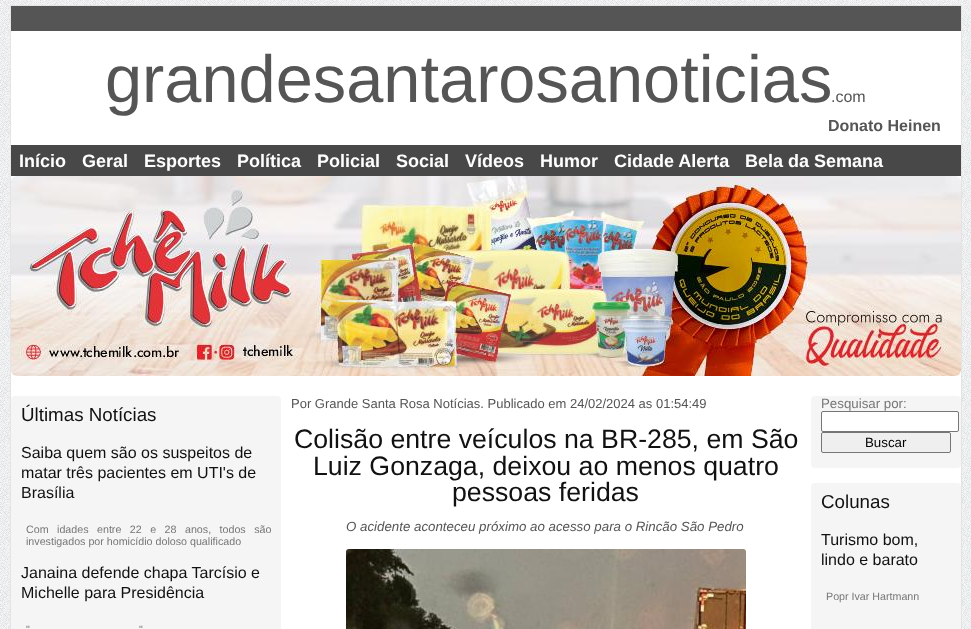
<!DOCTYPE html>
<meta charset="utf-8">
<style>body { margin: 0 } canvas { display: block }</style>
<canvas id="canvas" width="971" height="629"></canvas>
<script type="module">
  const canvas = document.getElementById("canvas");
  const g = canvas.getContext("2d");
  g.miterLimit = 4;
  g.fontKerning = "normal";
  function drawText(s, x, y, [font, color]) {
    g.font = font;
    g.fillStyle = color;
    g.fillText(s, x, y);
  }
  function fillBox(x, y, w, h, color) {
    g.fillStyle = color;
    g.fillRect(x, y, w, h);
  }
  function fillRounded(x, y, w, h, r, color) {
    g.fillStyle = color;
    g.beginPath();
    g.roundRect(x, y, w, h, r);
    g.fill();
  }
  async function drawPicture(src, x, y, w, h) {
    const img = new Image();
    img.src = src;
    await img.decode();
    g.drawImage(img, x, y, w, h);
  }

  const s1 = ["66.75px Liberation Sans", "#555555"];
  const s2 = ["16px Liberation Sans", "#555555"];
  const s3 = ["bold 16px Liberation Sans", "#555555"];
  const s4 = ["bold 18px Liberation Sans", "#FFFFFF"];
  const s5 = ["18.75px Liberation Sans", "#111111"];
  const s6 = ["16px Liberation Sans", "#111111"];
  const s7 = ["10.7px Liberation Sans", "#777777"];
  const s8 = ["13px Liberation Sans", "#555555"];
  const s9 = ["26.7px Liberation Sans", "#111111"];
  const s10 = ["italic 13.3px Liberation Sans", "#555555"];
  const s11 = ["13.3px Liberation Sans", "#777777"];
  const s12 = ["13.3px Liberation Sans", "#000000"];

  fillBox(0, 0, 971, 629, "#FFFFFF");
  await drawPicture("pic1.png", 0, 0, 971, 629);
  fillBox(11, 31, 950, 598, "#FFFFFF");
  g.strokeStyle = "#E4E4E4";
  g.strokeRect(10.5, 5.5, 951, 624);
  fillBox(11, 6, 950, 25, "#555555");
  drawText("grandesantarosanoticias", 105, 102, s1);
  drawText(".com", 831, 102, s2);
  drawText("Donato Heinen", 828, 131, s3);
  fillBox(11, 145, 950, 31, "#484848");
  drawText("Início", 19, 167, s4);
  drawText("Geral", 82, 167, s4);
  drawText("Esportes", 144, 167, s4);
  drawText("Política", 237, 167, s4);
  drawText("Policial", 317, 167, s4);
  drawText("Social", 396, 167, s4);
  drawText("Vídeos", 465, 167, s4);
  drawText("Humor", 540, 167, s4);
  drawText("Cidade Alerta", 614, 167, s4);
  drawText("Bela da Semana", 745, 167, s4);
  await drawPicture("pic2.png", 11, 176, 950, 200);
  fillRounded(11, 396, 270, 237, 4, "#F5F5F5");
  drawText("Últimas Notícias", 21, 421, s5);
  drawText("Saiba quem são os suspeitos de", 21, 458, s6);
  drawText("matar três pacientes em UTI's de", 21, 478, s6);
  drawText("Brasília", 21, 498, s6);
  g.wordSpacing = "5.5px";
  drawText("Com idades entre 22 e 28 anos, todos são", 26, 533, s7);
  g.wordSpacing = "0px";
  drawText("investigados por homicídio doloso qualificado", 26, 545, s7);
  drawText("Janaina defende chapa Tarcísio e", 21, 578, s6);
  drawText("Michelle para Presidência", 21, 598, s6);
  drawText("\"", 26, 633, s7);
  drawText("\"", 139, 633, s7);
  drawText("Por Grande Santa Rosa Notícias. Publicado em 24/02/2024 as 01:54:49", 291, 408, s8);
  drawText("Colisão entre veículos na BR-285, em São", 294, 448, s9);
  drawText("Luiz Gonzaga, deixou ao menos quatro", 313, 475, s9);
  drawText("pessoas feridas", 452, 501, s9);
  drawText("O acidente aconteceu próximo ao acesso para o Rincão São Pedro", 346, 531, s10);
  await drawPicture("pic3.png", 346, 549, 400, 80);
  fillRounded(811, 396, 150, 72, 4, "#F5F5F5");
  drawText("Pesquisar por:", 821, 408, s11);
  g.fillStyle = "#FFFFFF";
  g.beginPath();
  g.roundRect(821.5, 411.5, 137, 20, 1.5);
  g.fill();
  g.strokeStyle = "#767676";
  g.stroke();
  g.fillStyle = "#EFEFEF";
  g.beginPath();
  g.roundRect(821.5, 432.5, 129, 20, 1.5);
  g.fill();
  g.stroke();
  drawText("Buscar", 865, 447, s12);
  fillRounded(811, 483, 150, 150, 4, "#F5F5F5");
  drawText("Colunas", 821, 508, s5);
  drawText("Turismo bom,", 821, 545, s6);
  drawText("lindo e barato", 821, 565, s6);
  drawText("Popr Ivar Hartmann", 826, 600, s7);
</script>
